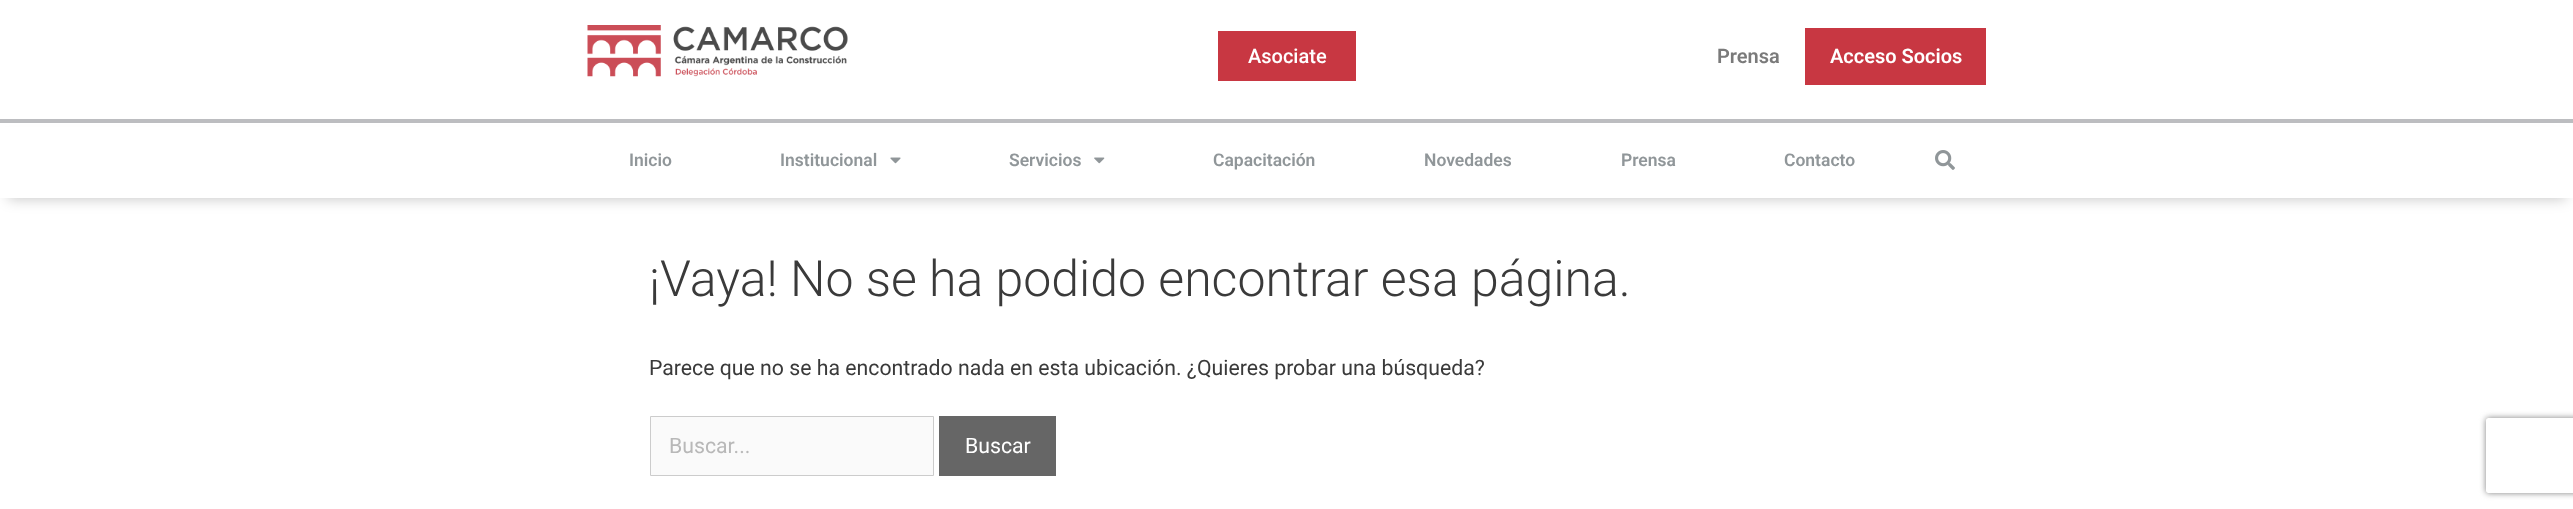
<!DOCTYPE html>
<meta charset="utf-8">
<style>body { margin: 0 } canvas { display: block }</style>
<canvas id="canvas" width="2573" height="509"></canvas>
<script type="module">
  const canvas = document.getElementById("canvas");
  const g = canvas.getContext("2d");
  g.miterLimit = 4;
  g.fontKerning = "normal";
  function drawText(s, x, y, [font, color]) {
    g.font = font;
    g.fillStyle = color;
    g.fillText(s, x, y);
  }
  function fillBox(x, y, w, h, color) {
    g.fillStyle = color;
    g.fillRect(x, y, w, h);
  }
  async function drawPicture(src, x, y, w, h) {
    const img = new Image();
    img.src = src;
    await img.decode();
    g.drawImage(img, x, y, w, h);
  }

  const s1 = ["500 20px Roboto", "#FFFFFF"];
  const s2 = ["600 20px Roboto", "#7A7A7A"];
  const s3 = ["600 20px Roboto", "#FFFFFF"];
  const s4 = ["600 17.5px Roboto", "#909699"];
  const s5 = ["300 50px Roboto", "#3A3A3A"];
  const s6 = ["21.25px Roboto", "#3A3A3A"];
  const s7 = ["21.25px Roboto", "#B8B8B8"];
  const s8 = ["21.25px Roboto", "#FFFFFF"];

  fillBox(0, 0, 2573, 509, "#FFFFFF");
  fillBox(0, 119, 2573, 4, "#BCBDC0");
  await drawPicture("pic1.png", 587, 25, 261, 52);
  fillBox(1218, 31, 138, 50, "#C83742");
  drawText("Asociate", 1248, 63, s1);
  drawText("Prensa", 1717, 63, s2);
  fillBox(1805, 28, 181, 57, "#C83742");
  drawText("Acceso Socios", 1830, 63, s3);
  g.fillStyle = "rgba(0, 0, 0, 0.22)";
  g.filter = "blur(7px)";
  g.beginPath();
  g.rect(8, 139, 2558, 60);
  g.fill();
  g.filter = "none";
  fillBox(0, 127, 2573, 71, "#FFFFFF");
  drawText("Inicio", 629, 166, s4);
  drawText("Institucional", 780, 166, s4);
  await drawPicture("pic2.png", 890, 157, 11, 7);
  drawText("Servicios", 1009, 166, s4);
  await drawPicture("pic3.png", 1094, 157, 11, 7);
  drawText("Capacitación", 1213, 166, s4);
  drawText("Novedades", 1424, 166, s4);
  drawText("Prensa", 1621, 166, s4);
  drawText("Contacto", 1784, 166, s4);
  await drawPicture("pic4.png", 1935, 150, 20, 20);
  drawText("¡Vaya! No se ha podido encontrar esa página.", 649, 296, s5);
  drawText("Parece que no se ha encontrado nada en esta ubicación. ¿Quieres probar una búsqueda?", 649, 375, s6);
  g.fillStyle = "#FAFAFA";
  g.beginPath();
  g.rect(650.5, 416.5, 283, 59);
  g.fill();
  g.strokeStyle = "#CCCCCC";
  g.stroke();
  drawText("Buscar...", 669, 453, s7);
  fillBox(939, 416, 117, 60, "#666666");
  drawText("Buscar", 965, 453, s8);
  g.save();
  g.beginPath();
  g.moveTo(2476, 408);
  g.lineTo(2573, 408);
  g.lineTo(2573, 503);
  g.lineTo(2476, 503);
  g.closePath();
  g.moveTo(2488.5, 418);
  g.lineTo(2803.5, 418);
  g.bezierCurveTo(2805, 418, 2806, 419, 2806, 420.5);
  g.lineTo(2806, 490.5);
  g.bezierCurveTo(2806, 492, 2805, 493, 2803.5, 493);
  g.lineTo(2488.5, 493);
  g.bezierCurveTo(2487, 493, 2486, 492, 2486, 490.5);
  g.lineTo(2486, 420.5);
  g.bezierCurveTo(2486, 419, 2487, 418, 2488.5, 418);
  g.closePath();
  g.clip("evenodd");
  g.fillStyle = "#808080";
  g.filter = "blur(3px)";
  g.beginPath();
  g.roundRect(2486, 418, 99, 75, 2.5);
  g.fill();
  g.filter = "none";
  g.restore();
</script>
